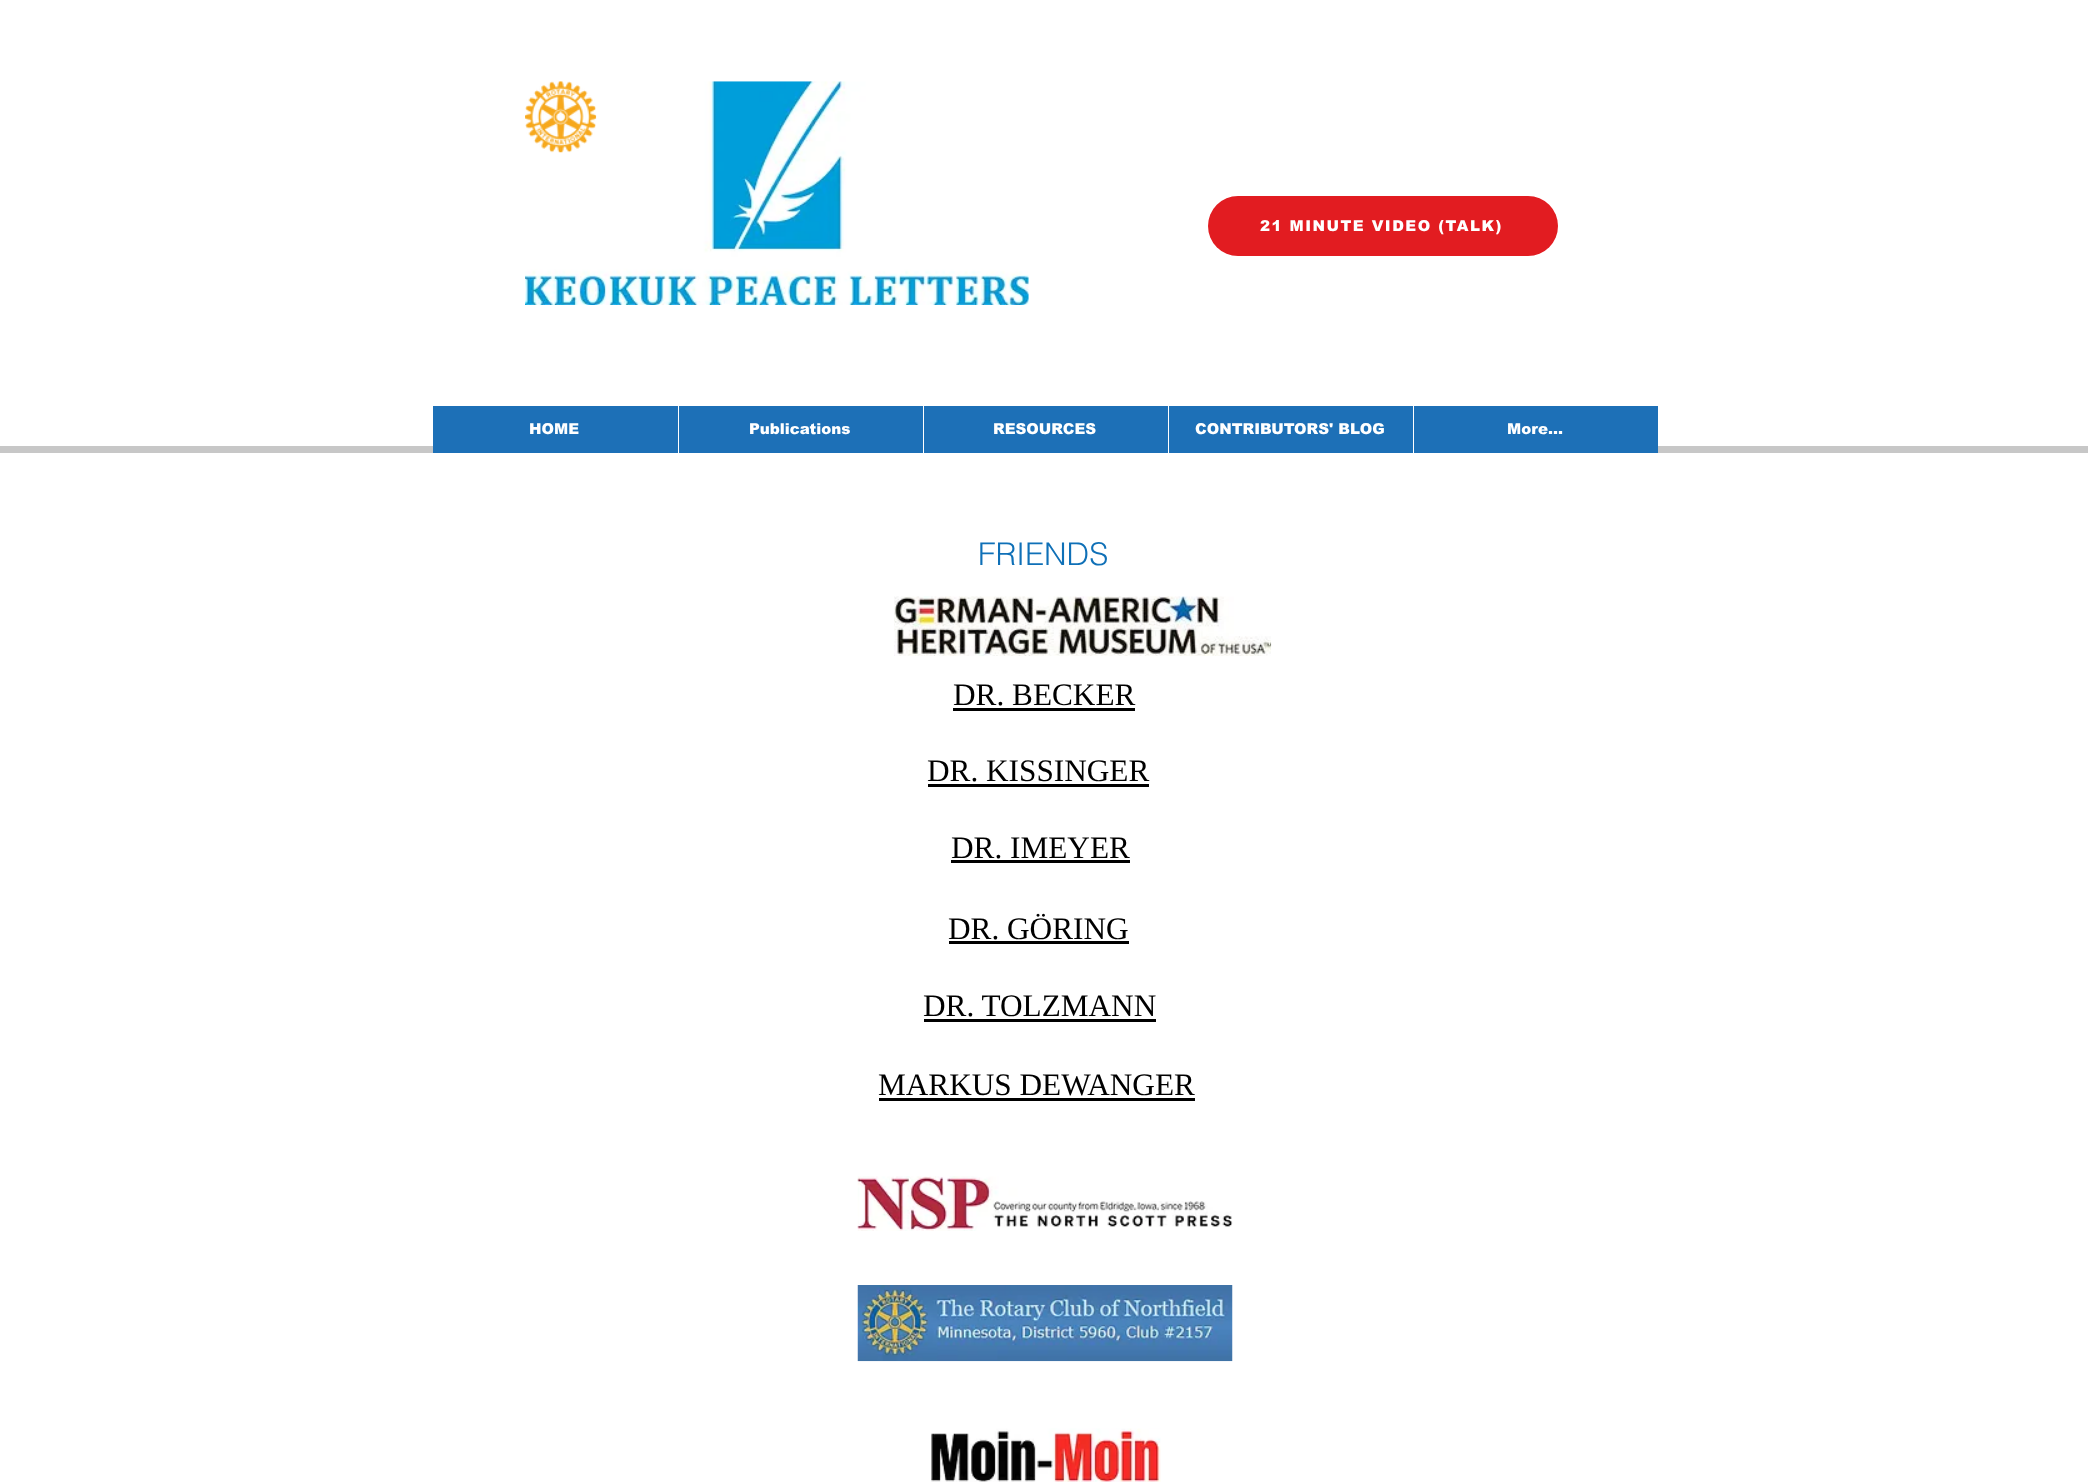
<!DOCTYPE html>
<meta charset="utf-8">
<style>body { margin: 0 } canvas { display: block }</style>
<canvas id="canvas" width="2088" height="1482"></canvas>
<script type="module">
  const canvas = document.getElementById("canvas");
  const g = canvas.getContext("2d");
  g.miterLimit = 4;
  g.fontKerning = "normal";
  function drawText(s, x, y, [font, color]) {
    g.font = font;
    g.fillStyle = color;
    g.fillText(s, x, y);
  }
  function fillBox(x, y, w, h, color) {
    g.fillStyle = color;
    g.fillRect(x, y, w, h);
  }
  function fillRounded(x, y, w, h, r, color) {
    g.fillStyle = color;
    g.beginPath();
    g.roundRect(x, y, w, h, r);
    g.fill();
  }
  async function drawPicture(src, x, y, w, h) {
    const img = new Image();
    img.src = src;
    await img.decode();
    g.drawImage(img, x, y, w, h);
  }

  const s1 = ["900 15px arial", "#FFFFFF"];
  const s2 = ["300 31.25px helvetica", "#0F70B7"];
  const s3 = ["31.25px Liberation Serif", "#000000"];

  fillBox(0, 0, 2088, 1482, "#FFFFFF");
  await drawPicture("pic1.png", 525, 81, 504, 224);
  await drawPicture("pic2.png", 525, 81, 72, 72);
  fillRounded(1208, 196, 350, 60, 30, "#E21C21");
  g.letterSpacing = "1.5px";
  drawText("21 MINUTE VIDEO (TALK)", 1260, 231, s1);
  fillBox(0, 446, 2088, 7, "#C7C7C7");
  fillBox(433, 406, 1225, 47, "#1D70B7");
  g.letterSpacing = "0px";
  drawText("HOME", 529, 434, s1);
  fillBox(678, 406, 1, 47, "#FFFFFF");
  drawText("Publications", 749, 434, s1);
  fillBox(923, 406, 1, 47, "#FFFFFF");
  drawText("RESOURCES", 993, 434, s1);
  fillBox(1168, 406, 1, 47, "#FFFFFF");
  drawText("CONTRIBUTORS' BLOG", 1195, 434, s1);
  fillBox(1413, 406, 1, 47, "#FFFFFF");
  drawText("More...", 1507, 434, s1);
  drawText("FRIENDS", 978, 565, s2);
  await drawPicture("pic3.png", 894, 596, 378, 60);
  drawText("DR. BECKER", 953, 705, s3);
  fillBox(953, 708, 182, 3, "#000000");
  drawText("DR. KISSINGER", 927, 781, s3);
  fillBox(928, 784, 221, 3, "#000000");
  drawText("DR. IMEYER", 951, 858, s3);
  fillBox(951, 860, 179, 3, "#000000");
  drawText("DR. GÖRING", 948, 939, s3);
  fillBox(949, 941, 180, 3, "#000000");
  drawText("DR. TOLZMANN", 923, 1016, s3);
  fillBox(924, 1019, 232, 3, "#000000");
  drawText("MARKUS DEWANGER", 878, 1095, s3);
  fillBox(879, 1098, 316, 3, "#000000");
  await drawPicture("pic4.png", 857, 1176, 376, 55);
  await drawPicture("pic5.png", 857, 1285, 376, 77);
  await drawPicture("pic6.png", 931, 1428, 230, 54);
</script>
